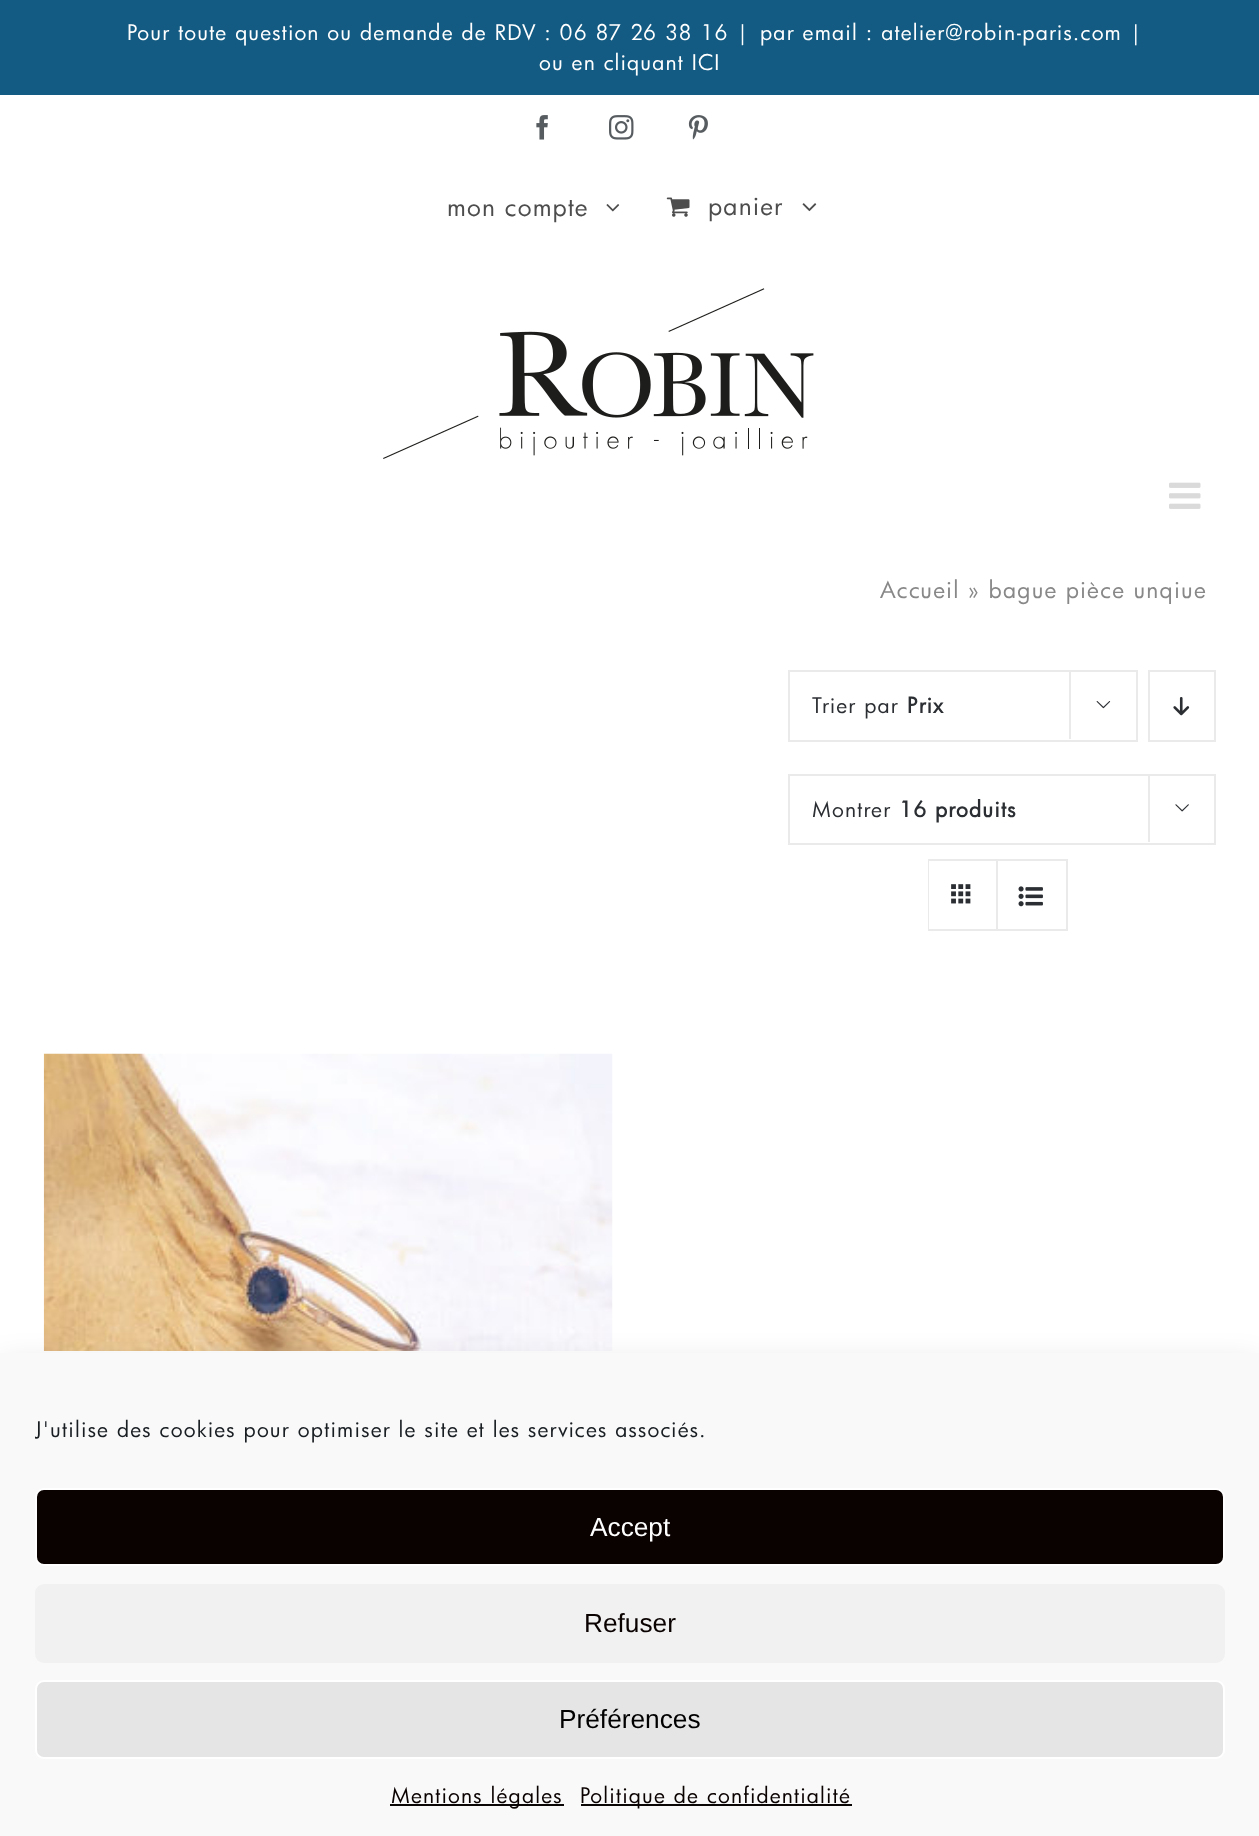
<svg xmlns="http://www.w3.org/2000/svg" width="1259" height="1836">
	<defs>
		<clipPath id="clip1"><rect x="35" y="1412" width="1190" height="41" /></clipPath>
	</defs>
	<rect width="100%" height="100%" fill="#FFFFFF" />
	<rect x="0" y="0" width="1259" height="95" fill="#135B82" />
	<g font-family="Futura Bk" font-size="21" letter-spacing="1.22" fill="#FFFFFF">
		<text x="127" y="40">Pour toute question ou demande de RDV : 06 87 26 38 16 |</text>
		<text x="760" y="40">par email : atelier@robin-paris.com |</text>
		<text x="539" y="70">ou en cliquant ICI</text>
	</g>
	<image x="536" y="115" width="12" height="25" href="assets/img1.png" />
	<image x="609" y="115" width="25" height="25" href="assets/img2.png" />
	<image x="688" y="115" width="20" height="25" href="assets/img3.png" />
	<text x="447" y="216" font-family="Futura Bk" font-size="24.5" letter-spacing="1.22" fill="#4D4D4D">mon compte</text>
	<image x="606" y="204" width="14" height="8" href="assets/img4.png" />
	<image x="666" y="197" width="24" height="20" href="assets/img5.png" />
	<text x="708" y="215" font-family="Futura Bk" font-size="24.5" letter-spacing="1.22" fill="#4D4D4D">panier</text>
	<image x="802" y="203" width="15" height="9" href="assets/img6.png" />
	<image x="383" y="288" width="431" height="171" href="assets/img7.png" />
	<image x="1169" y="482" width="32" height="27" href="assets/img8.png" />
	<text x="880" y="598" font-family="Futura Bk" font-size="22.75" letter-spacing="1.22" fill="#888888">Accueil » bague pièce unqiue</text>
	<rect x="789" y="671" width="348" height="70" fill="none" stroke="#EAEAEA" stroke-width="2" />
	<text x="812" y="713" font-family="Futura Bk" font-size="21" letter-spacing="1.22" fill="#2B2E32">Trier par</text>
	<text x="907" y="713" font-family="Futura Bk" font-size="21" font-weight="700" letter-spacing="1.22" fill="#2B2E32">Prix</text>
	<rect x="1069" y="670" width="2" height="69" fill="#EAEAEA" />
	<image x="1096" y="701" width="15" height="8" href="assets/img9.png" />
	<rect x="1149" y="671" width="66" height="70" fill="none" stroke="#EAEAEA" stroke-width="2" />
	<image x="1173" y="697" width="17" height="19" href="assets/img10.png" />
	<rect x="789" y="775" width="426" height="69" fill="none" stroke="#EAEAEA" stroke-width="2" />
	<text x="812" y="817" font-family="Futura Bk" font-size="21" letter-spacing="1.22" fill="#2B2E32">Montrer</text>
	<text x="899" y="817" font-family="Futura Bk" font-size="21" font-weight="700" letter-spacing="1.22" fill="#2B2E32">16 produits</text>
	<rect x="1148" y="774" width="2" height="68" fill="#EAEAEA" />
	<image x="1175" y="804" width="14" height="8" href="assets/img11.png" />
	<rect x="929" y="860" width="138" height="70" fill="none" stroke="#EAEAEA" stroke-width="2" />
	<rect x="929" y="861" width="1" height="68" fill="#FFFFFF" />
	<rect x="996" y="861" width="2" height="68" fill="#EAEAEA" />
	<image x="951" y="884" width="20" height="20" href="assets/img12.png" />
	<image x="1018" y="886" width="25" height="21" href="assets/img13.png" />
	<image x="43" y="1053" width="570" height="298" href="assets/img14.png" />
	<rect x="0" y="1369" width="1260" height="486" fill="#000000" fill-opacity="0.19" filter="blur(17.5px)" />
	<rect x="0" y="1353" width="1259" height="483" fill="#F9F9F9" />
	<g clip-path="url(#clip1)">
		<text x="35" y="1437" font-family="Futura Bk" font-size="21" letter-spacing="1.22" fill="#191E23">J'utilise des cookies pour optimiser le site et les services associés.</text>
	</g>
	<rect x="36" y="1489" width="1188" height="76" rx="8" fill="#0A0101" stroke="#FFFFFF" stroke-width="2" />
	<text x="590" y="1536" font-family="Liberation Sans" font-size="26.25" fill="#FFFFFF">Accept</text>
	<rect x="35" y="1584" width="1190" height="79" rx="9" fill="#F1F1F1" />
	<text x="584" y="1632" font-family="Liberation Sans" font-size="26.25" fill="#0A0101">Refuser</text>
	<rect x="36" y="1681" width="1188" height="77" rx="8" fill="#E5E5E5" stroke="#FFFFFF" stroke-width="2" />
	<text x="559" y="1728" font-family="Liberation Sans" font-size="26.25" fill="#000000">Préférences</text>
	<rect x="390" y="1804" width="174" height="2" fill="#0A0606" />
	<text x="391" y="1803" font-family="Futura Bk" font-size="21" letter-spacing="1.22" fill="#0A0101">Mentions légales</text>
	<rect x="581" y="1804" width="271" height="2" fill="#0A0606" />
	<text x="580" y="1803" font-family="Futura Bk" font-size="21" letter-spacing="1.22" fill="#0A0101">Politique de confidentialité</text>
</svg>
